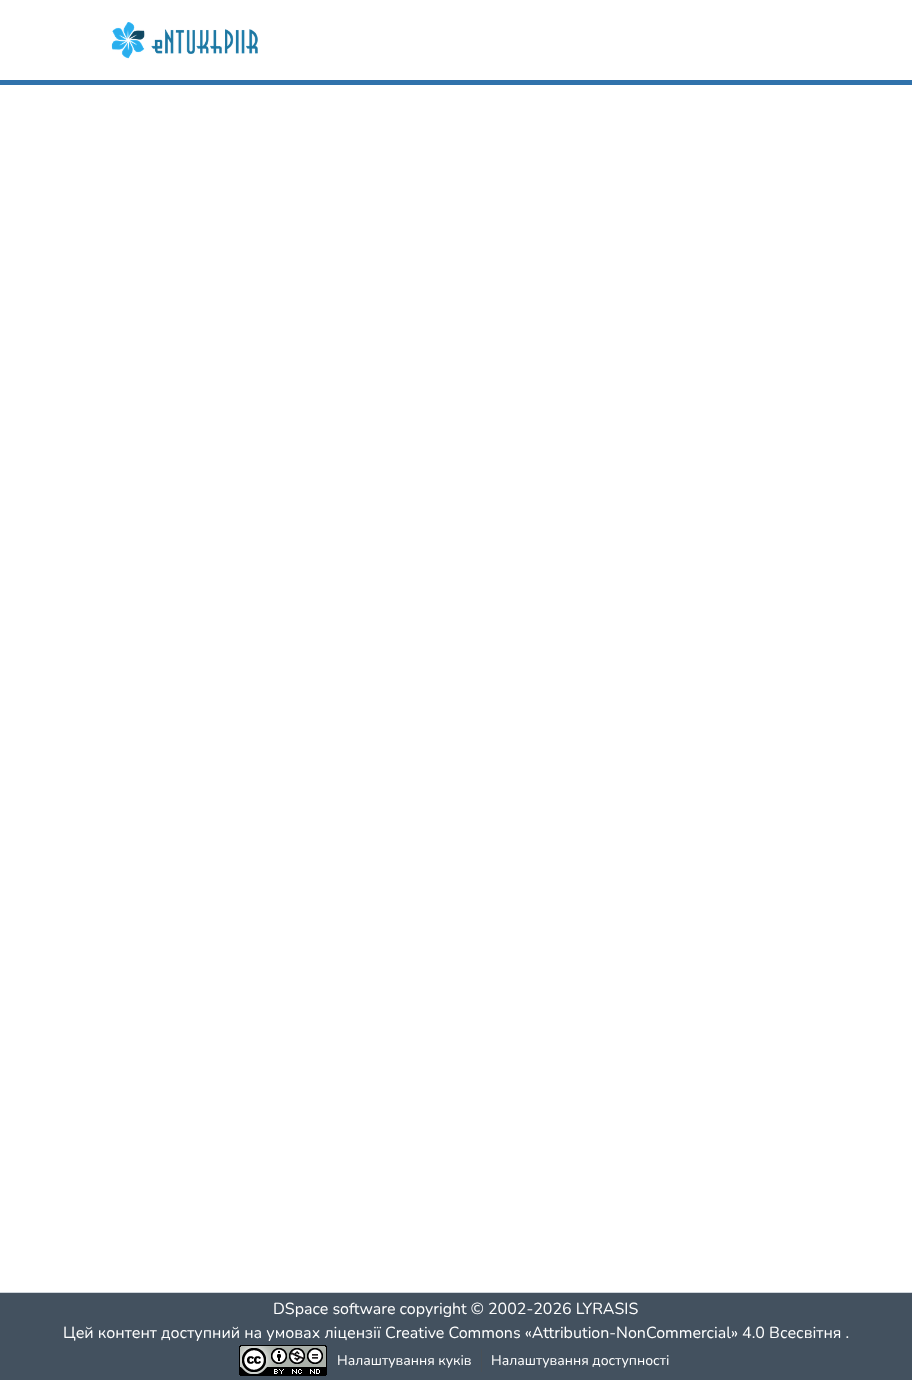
<svg xmlns="http://www.w3.org/2000/svg" width="912" height="1380">
	<rect width="100%" height="100%" fill="#FFFFFF" />
	<rect x="0" y="80" width="912" height="5" fill="#3072AB" />
	<image x="111" y="22" width="147" height="37" href="assets/img1.png" />
	<rect x="0" y="1293" width="912" height="87" fill="#43515F" />
	<rect x="0" y="1292" width="912" height="1" fill="#CED4DA" />
	<g font-family="Nunito" font-size="16" fill="#FFFFFF">
		<text x="273" y="1314">DSpace software copyright © 2002-2026 LYRASIS</text>
		<text x="63" y="1338">Цей контент доступний на умовах ліцензії Creative Commons «Attribution-NonCommercial» 4.0 Всесвітня .</text>
	</g>
	<image x="239" y="1345" width="88" height="31" href="assets/img2.png" />
	<text x="337" y="1365" font-family="Nunito" font-size="14" fill="#FFFFFF">Налаштування куків</text>
	<rect x="481" y="1349" width="1" height="23" fill="#495057" />
	<text x="491" y="1365" font-family="Nunito" font-size="14" fill="#FFFFFF">Налаштування доступності</text>
</svg>
